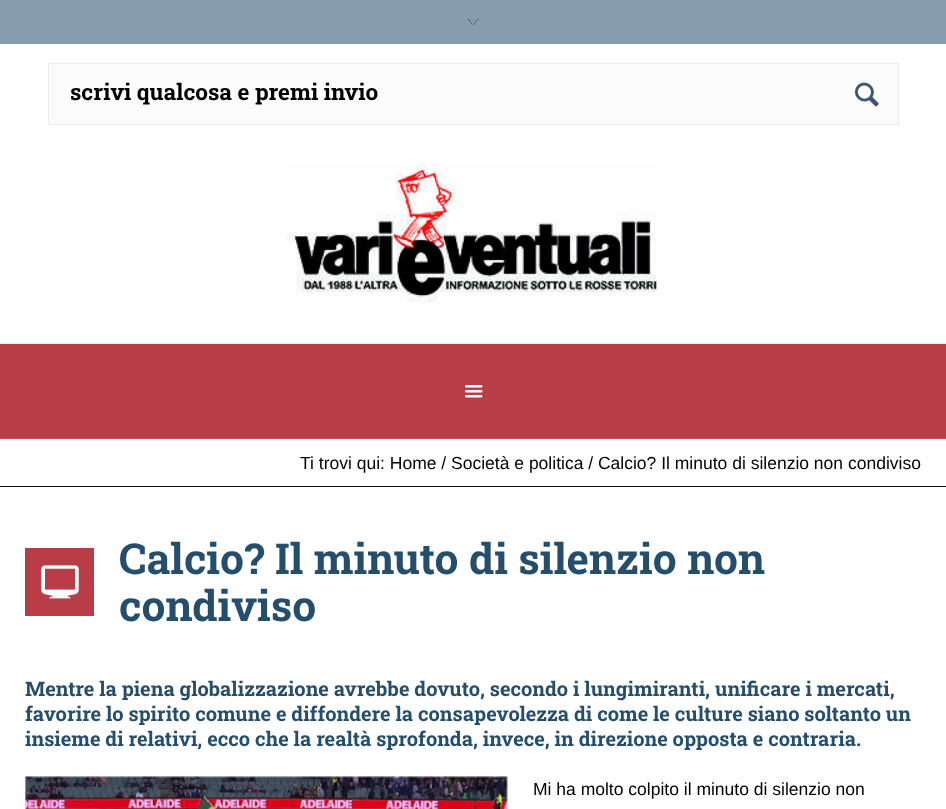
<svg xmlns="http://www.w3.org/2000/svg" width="946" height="809">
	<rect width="100%" height="100%" fill="#FFFFFF" />
	<rect x="0" y="0" width="946" height="44" fill="#879CAE" />
	<rect x="473" y="24" width="1" height="1" fill="#3C576E" />
	<rect x="478" y="19" width="1" height="1" fill="#3C576E" />
	<rect x="468" y="19" width="1" height="1" fill="#3C576E" />
	<rect x="476" y="20" width="1" height="1" fill="#3C576E" />
	<rect x="469" y="20" width="1" height="1" fill="#3C576E" />
	<rect x="475" y="21" width="1" height="1" fill="#3C576E" />
	<rect x="470" y="21" width="1" height="1" fill="#3C576E" />
	<rect x="474" y="23" width="1" height="1" fill="#3C576E" />
	<rect x="471" y="23" width="1" height="1" fill="#3C576E" />
	<rect x="0" y="343" width="946" height="1" fill="#EBEBEB" />
	<rect x="48.5" y="63.5" width="850" height="61" fill="#FBFBFB" stroke="#EBEBEB" />
	<text x="70" y="100" font-family="Roboto Slab" font-size="22.5" font-weight="700" fill="#000000">scrivi qualcosa e premi invio</text>
	<image x="855" y="82" width="24" height="25" href="assets/img1.png" />
	<image x="286" y="162" width="371" height="141" href="assets/img2.png" />
	<rect x="0" y="344" width="946" height="94" fill="#B83D46" />
	<rect x="0" y="438" width="946" height="1" fill="#BF5058" />
	<image x="465" y="385" width="18" height="13" href="assets/img3.png" />
	<rect x="0" y="486" width="946" height="1" fill="#0F0E0E" />
	<text x="300" y="469" font-family="Liberation Sans" font-size="17.5" fill="#000000">Ti trovi qui: Home / Società e politica / Calcio? Il minuto di silenzio non condiviso</text>
	<rect x="25" y="548" width="69" height="68" fill="#B83D46" />
	<image x="41" y="565" width="38" height="34" href="assets/img4.png" />
	<g font-family="Roboto Slab" font-size="42.5" font-weight="700" fill="#254E6D">
		<text x="119" y="574">Calcio? Il minuto di silenzio non</text>
		<text x="119" y="621">condiviso</text>
	</g>
	<g font-family="Roboto Slab" font-size="20" font-weight="700" fill="#254E6D">
		<text x="25" y="696">Mentre la piena globalizzazione avrebbe dovuto, secondo i lungimiranti, unificare i mercati,</text>
		<text x="25" y="721">favorire lo spirito comune e diffondere la consapevolezza di come le culture siano soltanto un</text>
		<text x="25" y="746">insieme di relativi, ecco che la realtà sprofonda, invece, in direzione opposta e contraria.</text>
	</g>
	<image x="25" y="776" width="483" height="33" href="assets/img5.png" />
	<text x="533" y="795" font-family="Liberation Sans" font-size="17.5" fill="#000000">Mi ha molto colpito il minuto di silenzio non</text>
</svg>
